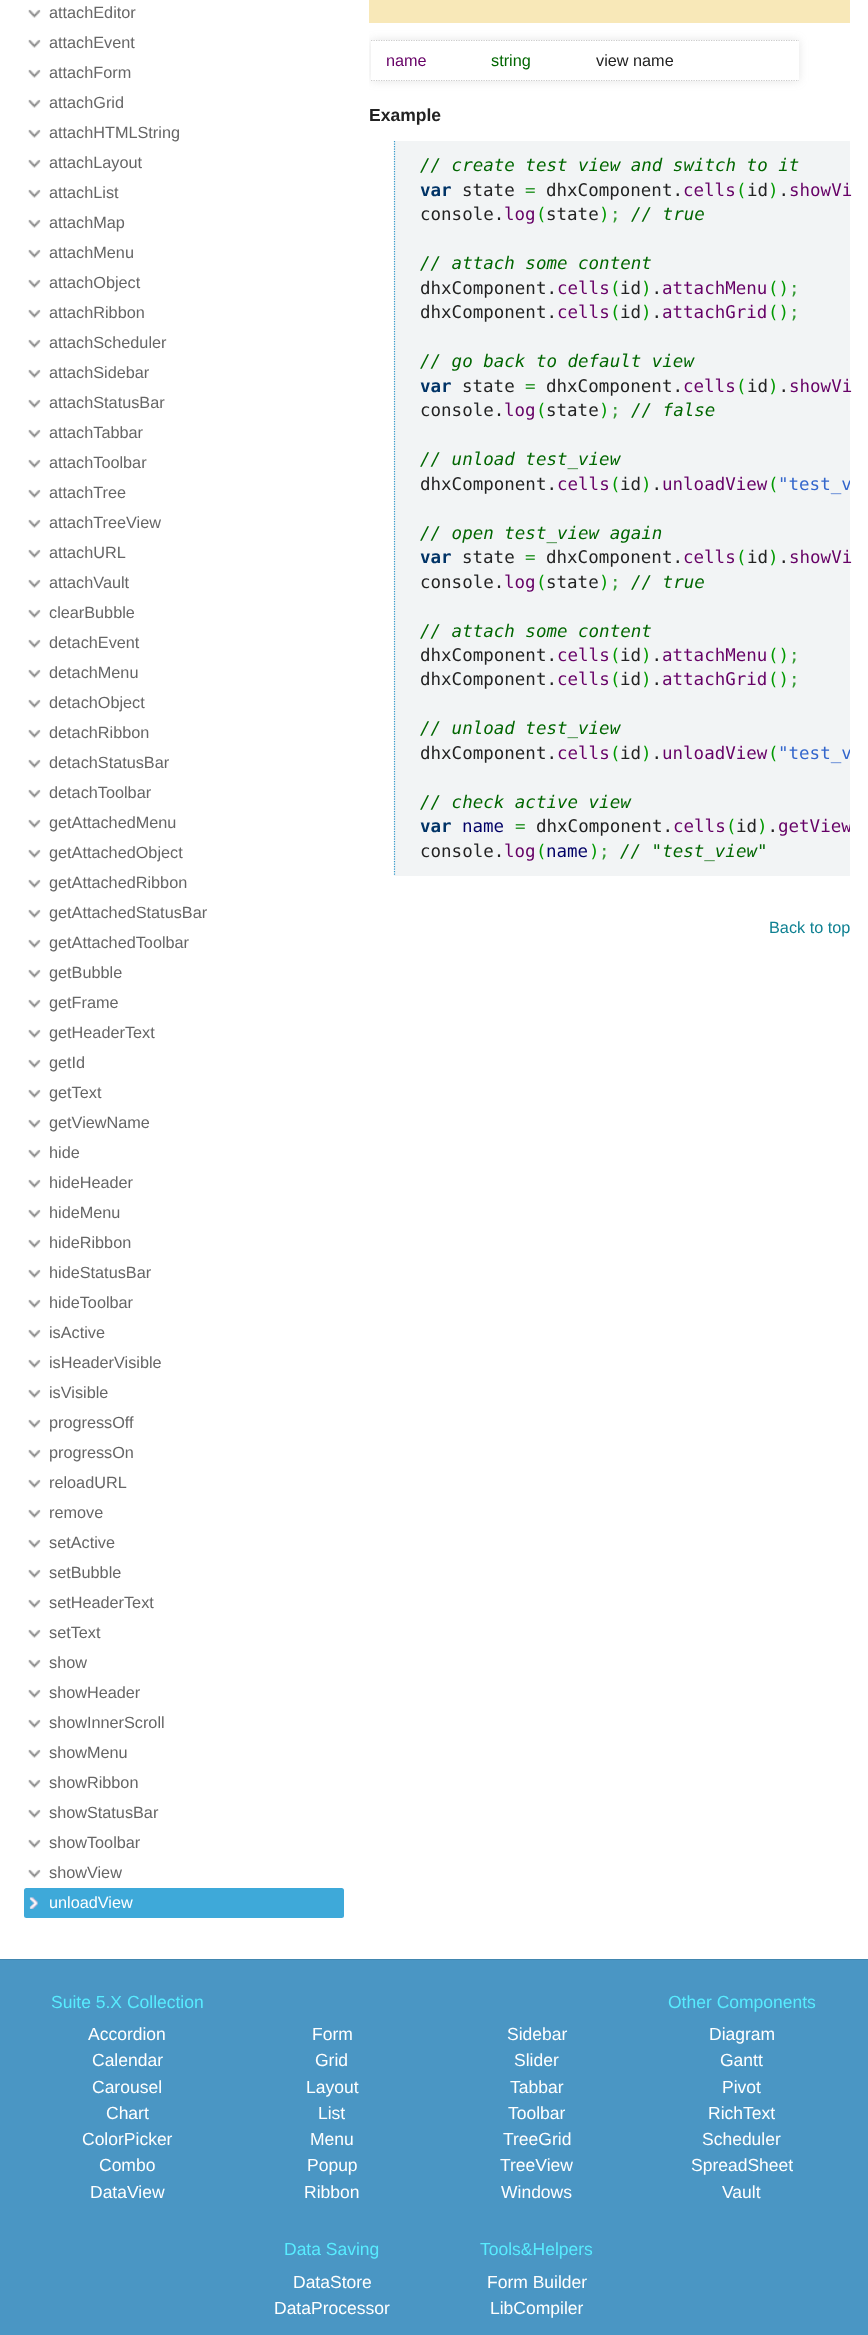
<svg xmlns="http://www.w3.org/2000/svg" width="868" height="2335">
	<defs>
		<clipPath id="clip1"><rect x="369" y="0" width="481" height="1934" /></clipPath>
		<clipPath id="clip2"><path d="M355 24H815V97H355ZM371 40H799V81H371Z" clip-rule="evenodd" /></clipPath>
		<clipPath id="clip3"><rect x="369" y="0" width="481" height="1934" /></clipPath>
	</defs>
	<rect width="100%" height="100%" fill="#4A96C4" />
	<rect x="0" y="0" width="868" height="1959" fill="#FFFFFF" />
	<image x="28" y="9" width="13" height="9" href="assets/img1.png" />
	<text x="49" y="18" font-family="Liberation Sans" font-size="16.25" fill="#666666">attachEditor</text>
	<image x="28" y="39" width="13" height="9" href="assets/img1.png" />
	<text x="49" y="48" font-family="Liberation Sans" font-size="16.25" fill="#666666">attachEvent</text>
	<image x="28" y="69" width="13" height="9" href="assets/img1.png" />
	<text x="49" y="78" font-family="Liberation Sans" font-size="16.25" fill="#666666">attachForm</text>
	<image x="28" y="99" width="13" height="9" href="assets/img1.png" />
	<text x="49" y="108" font-family="Liberation Sans" font-size="16.25" fill="#666666">attachGrid</text>
	<image x="28" y="129" width="13" height="9" href="assets/img1.png" />
	<text x="49" y="138" font-family="Liberation Sans" font-size="16.25" fill="#666666">attachHTMLString</text>
	<image x="28" y="159" width="13" height="9" href="assets/img1.png" />
	<text x="49" y="168" font-family="Liberation Sans" font-size="16.25" fill="#666666">attachLayout</text>
	<image x="28" y="189" width="13" height="9" href="assets/img1.png" />
	<text x="49" y="198" font-family="Liberation Sans" font-size="16.25" fill="#666666">attachList</text>
	<image x="28" y="219" width="13" height="9" href="assets/img1.png" />
	<text x="49" y="228" font-family="Liberation Sans" font-size="16.25" fill="#666666">attachMap</text>
	<image x="28" y="249" width="13" height="9" href="assets/img1.png" />
	<text x="49" y="258" font-family="Liberation Sans" font-size="16.25" fill="#666666">attachMenu</text>
	<image x="28" y="279" width="13" height="9" href="assets/img1.png" />
	<text x="49" y="288" font-family="Liberation Sans" font-size="16.25" fill="#666666">attachObject</text>
	<image x="28" y="309" width="13" height="9" href="assets/img1.png" />
	<text x="49" y="318" font-family="Liberation Sans" font-size="16.25" fill="#666666">attachRibbon</text>
	<image x="28" y="339" width="13" height="9" href="assets/img1.png" />
	<text x="49" y="348" font-family="Liberation Sans" font-size="16.25" fill="#666666">attachScheduler</text>
	<image x="28" y="369" width="13" height="9" href="assets/img2.png" />
	<text x="49" y="378" font-family="Liberation Sans" font-size="16.25" fill="#666666">attachSidebar</text>
	<image x="28" y="399" width="13" height="9" href="assets/img1.png" />
	<text x="49" y="408" font-family="Liberation Sans" font-size="16.25" fill="#666666">attachStatusBar</text>
	<image x="28" y="429" width="13" height="9" href="assets/img1.png" />
	<text x="49" y="438" font-family="Liberation Sans" font-size="16.25" fill="#666666">attachTabbar</text>
	<image x="28" y="459" width="13" height="9" href="assets/img1.png" />
	<text x="49" y="468" font-family="Liberation Sans" font-size="16.25" fill="#666666">attachToolbar</text>
	<image x="28" y="489" width="13" height="9" href="assets/img1.png" />
	<text x="49" y="498" font-family="Liberation Sans" font-size="16.25" fill="#666666">attachTree</text>
	<image x="28" y="519" width="13" height="9" href="assets/img1.png" />
	<text x="49" y="528" font-family="Liberation Sans" font-size="16.25" fill="#666666">attachTreeView</text>
	<image x="28" y="549" width="13" height="9" href="assets/img1.png" />
	<text x="49" y="558" font-family="Liberation Sans" font-size="16.25" fill="#666666">attachURL</text>
	<image x="28" y="579" width="13" height="9" href="assets/img1.png" />
	<text x="49" y="588" font-family="Liberation Sans" font-size="16.25" fill="#666666">attachVault</text>
	<image x="28" y="609" width="13" height="9" href="assets/img1.png" />
	<text x="49" y="618" font-family="Liberation Sans" font-size="16.25" fill="#666666">clearBubble</text>
	<image x="28" y="639" width="13" height="9" href="assets/img1.png" />
	<text x="49" y="648" font-family="Liberation Sans" font-size="16.25" fill="#666666">detachEvent</text>
	<image x="28" y="669" width="13" height="9" href="assets/img1.png" />
	<text x="49" y="678" font-family="Liberation Sans" font-size="16.25" fill="#666666">detachMenu</text>
	<image x="28" y="699" width="13" height="9" href="assets/img1.png" />
	<text x="49" y="708" font-family="Liberation Sans" font-size="16.25" fill="#666666">detachObject</text>
	<image x="28" y="729" width="13" height="9" href="assets/img1.png" />
	<text x="49" y="738" font-family="Liberation Sans" font-size="16.25" fill="#666666">detachRibbon</text>
	<image x="28" y="759" width="13" height="9" href="assets/img3.png" />
	<text x="49" y="768" font-family="Liberation Sans" font-size="16.25" fill="#666666">detachStatusBar</text>
	<image x="28" y="789" width="13" height="9" href="assets/img1.png" />
	<text x="49" y="798" font-family="Liberation Sans" font-size="16.25" fill="#666666">detachToolbar</text>
	<image x="28" y="819" width="13" height="9" href="assets/img1.png" />
	<text x="49" y="828" font-family="Liberation Sans" font-size="16.25" fill="#666666">getAttachedMenu</text>
	<image x="28" y="849" width="13" height="9" href="assets/img1.png" />
	<text x="49" y="858" font-family="Liberation Sans" font-size="16.25" fill="#666666">getAttachedObject</text>
	<image x="28" y="879" width="13" height="9" href="assets/img1.png" />
	<text x="49" y="888" font-family="Liberation Sans" font-size="16.25" fill="#666666">getAttachedRibbon</text>
	<image x="28" y="909" width="13" height="9" href="assets/img1.png" />
	<text x="49" y="918" font-family="Liberation Sans" font-size="16.25" fill="#666666">getAttachedStatusBar</text>
	<image x="28" y="939" width="13" height="9" href="assets/img1.png" />
	<text x="49" y="948" font-family="Liberation Sans" font-size="16.25" fill="#666666">getAttachedToolbar</text>
	<image x="28" y="969" width="13" height="9" href="assets/img1.png" />
	<text x="49" y="978" font-family="Liberation Sans" font-size="16.25" fill="#666666">getBubble</text>
	<image x="28" y="999" width="13" height="9" href="assets/img1.png" />
	<text x="49" y="1008" font-family="Liberation Sans" font-size="16.25" fill="#666666">getFrame</text>
	<image x="28" y="1029" width="13" height="9" href="assets/img1.png" />
	<text x="49" y="1038" font-family="Liberation Sans" font-size="16.25" fill="#666666">getHeaderText</text>
	<image x="28" y="1059" width="13" height="9" href="assets/img1.png" />
	<text x="49" y="1068" font-family="Liberation Sans" font-size="16.25" fill="#666666">getId</text>
	<image x="28" y="1089" width="13" height="9" href="assets/img1.png" />
	<text x="49" y="1098" font-family="Liberation Sans" font-size="16.25" fill="#666666">getText</text>
	<image x="28" y="1119" width="13" height="9" href="assets/img1.png" />
	<text x="49" y="1128" font-family="Liberation Sans" font-size="16.25" fill="#666666">getViewName</text>
	<image x="28" y="1149" width="13" height="9" href="assets/img3.png" />
	<text x="49" y="1158" font-family="Liberation Sans" font-size="16.25" fill="#666666">hide</text>
	<image x="28" y="1179" width="13" height="9" href="assets/img1.png" />
	<text x="49" y="1188" font-family="Liberation Sans" font-size="16.25" fill="#666666">hideHeader</text>
	<image x="28" y="1209" width="13" height="9" href="assets/img1.png" />
	<text x="49" y="1218" font-family="Liberation Sans" font-size="16.25" fill="#666666">hideMenu</text>
	<image x="28" y="1239" width="13" height="9" href="assets/img1.png" />
	<text x="49" y="1248" font-family="Liberation Sans" font-size="16.25" fill="#666666">hideRibbon</text>
	<image x="28" y="1269" width="13" height="9" href="assets/img1.png" />
	<text x="49" y="1278" font-family="Liberation Sans" font-size="16.25" fill="#666666">hideStatusBar</text>
	<image x="28" y="1299" width="13" height="9" href="assets/img1.png" />
	<text x="49" y="1308" font-family="Liberation Sans" font-size="16.25" fill="#666666">hideToolbar</text>
	<image x="28" y="1329" width="13" height="9" href="assets/img1.png" />
	<text x="49" y="1338" font-family="Liberation Sans" font-size="16.25" fill="#666666">isActive</text>
	<image x="28" y="1359" width="13" height="9" href="assets/img1.png" />
	<text x="49" y="1368" font-family="Liberation Sans" font-size="16.25" fill="#666666">isHeaderVisible</text>
	<image x="28" y="1389" width="13" height="9" href="assets/img1.png" />
	<text x="49" y="1398" font-family="Liberation Sans" font-size="16.25" fill="#666666">isVisible</text>
	<image x="28" y="1419" width="13" height="9" href="assets/img1.png" />
	<text x="49" y="1428" font-family="Liberation Sans" font-size="16.25" fill="#666666">progressOff</text>
	<image x="28" y="1449" width="13" height="9" href="assets/img2.png" />
	<text x="49" y="1458" font-family="Liberation Sans" font-size="16.25" fill="#666666">progressOn</text>
	<image x="28" y="1479" width="13" height="9" href="assets/img1.png" />
	<text x="49" y="1488" font-family="Liberation Sans" font-size="16.25" fill="#666666">reloadURL</text>
	<image x="28" y="1509" width="13" height="9" href="assets/img1.png" />
	<text x="49" y="1518" font-family="Liberation Sans" font-size="16.25" fill="#666666">remove</text>
	<image x="28" y="1539" width="13" height="9" href="assets/img1.png" />
	<text x="49" y="1548" font-family="Liberation Sans" font-size="16.25" fill="#666666">setActive</text>
	<image x="28" y="1569" width="13" height="9" href="assets/img1.png" />
	<text x="49" y="1578" font-family="Liberation Sans" font-size="16.25" fill="#666666">setBubble</text>
	<image x="28" y="1599" width="13" height="9" href="assets/img1.png" />
	<text x="49" y="1608" font-family="Liberation Sans" font-size="16.25" fill="#666666">setHeaderText</text>
	<image x="28" y="1629" width="13" height="9" href="assets/img1.png" />
	<text x="49" y="1638" font-family="Liberation Sans" font-size="16.25" fill="#666666">setText</text>
	<image x="28" y="1659" width="13" height="9" href="assets/img1.png" />
	<text x="49" y="1668" font-family="Liberation Sans" font-size="16.25" fill="#666666">show</text>
	<image x="28" y="1689" width="13" height="9" href="assets/img1.png" />
	<text x="49" y="1698" font-family="Liberation Sans" font-size="16.25" fill="#666666">showHeader</text>
	<image x="28" y="1719" width="13" height="9" href="assets/img1.png" />
	<text x="49" y="1728" font-family="Liberation Sans" font-size="16.25" fill="#666666">showInnerScroll</text>
	<image x="28" y="1749" width="13" height="9" href="assets/img1.png" />
	<text x="49" y="1758" font-family="Liberation Sans" font-size="16.25" fill="#666666">showMenu</text>
	<image x="28" y="1779" width="13" height="9" href="assets/img1.png" />
	<text x="49" y="1788" font-family="Liberation Sans" font-size="16.25" fill="#666666">showRibbon</text>
	<image x="28" y="1809" width="13" height="9" href="assets/img1.png" />
	<text x="49" y="1818" font-family="Liberation Sans" font-size="16.25" fill="#666666">showStatusBar</text>
	<image x="28" y="1839" width="13" height="9" href="assets/img1.png" />
	<text x="49" y="1848" font-family="Liberation Sans" font-size="16.25" fill="#666666">showToolbar</text>
	<image x="28" y="1869" width="13" height="9" href="assets/img1.png" />
	<text x="49" y="1878" font-family="Liberation Sans" font-size="16.25" fill="#666666">showView</text>
	<rect x="24" y="1888" width="320" height="30" rx="2.5" fill="#3EA9D9" />
	<image x="29" y="1897" width="9" height="12" href="assets/img4.png" />
	<text x="49" y="1908" font-family="Liberation Sans" font-size="16.25" fill="#FFFFFF">unloadView</text>
	<rect x="369" y="0" width="481" height="23" fill="#F8E8B8" />
	<g clip-path="url(#clip1)">
		<g clip-path="url(#clip2)">
			<rect x="371" y="40" width="428" height="41" fill="#7F7F7F" fill-opacity="0.2" filter="blur(5px)" />
		</g>
	</g>
	<path d="M371 40.5H799" fill="none" stroke="#CCCCCC" stroke-width="1.2" stroke-dasharray="1.25 1.25" />
	<path d="M371 80.5H476" fill="none" stroke="#CCCCCC" stroke-width="1.2" stroke-dasharray="1.25 1.25" />
	<text x="386" y="66" font-family="Liberation Sans" font-size="16.25" fill="#660066">name</text>
	<path d="M476 80.5H581" fill="none" stroke="#CCCCCC" stroke-width="1.2" stroke-dasharray="1.25 1.25" />
	<text x="491" y="66" font-family="Liberation Sans" font-size="16.25" fill="#006600">string</text>
	<path d="M581 80.5H799" fill="none" stroke="#CCCCCC" stroke-width="1.2" stroke-dasharray="1.25 1.25" />
	<text x="596" y="66" font-family="Liberation Sans" font-size="16.25" fill="#222222">view name</text>
	<text x="369" y="121" font-family="Liberation Sans" font-size="17.5" font-weight="700" fill="#222222">Example</text>
	<rect x="394" y="141" width="456" height="735" fill="#F2F4F5" />
	<path d="M394.5 141V876" fill="none" stroke="#3399CC" stroke-width="1.2" stroke-dasharray="1.25 1.25" />
	<text x="420" y="171" font-family="DejaVu Sans Mono" font-size="17.5" font-style="italic" fill="#006600">// create test view and switch to it</text>
	<text x="546" y="196" font-family="DejaVu Sans Mono" font-size="17.5" fill="#222222">dhxComponent.</text>
	<text x="683" y="196" font-family="DejaVu Sans Mono" font-size="17.5" fill="#660066">cells</text>
	<text x="736" y="196" font-family="DejaVu Sans Mono" font-size="17.5" fill="#009900">(</text>
	<text x="747" y="196" font-family="DejaVu Sans Mono" font-size="17.5" fill="#222222">id .</text>
	<text x="420" y="196" font-family="DejaVu Sans Mono" font-size="17.5" font-weight="700" fill="#003366">var</text>
	<text x="462" y="196" font-family="DejaVu Sans Mono" font-size="17.5" fill="#222222">state</text>
	<text x="525" y="196" font-family="DejaVu Sans Mono" font-size="17.5" fill="#339933">=</text>
	<text x="768" y="196" font-family="DejaVu Sans Mono" font-size="17.5" fill="#009900">)</text>
	<text x="789" y="196" font-family="DejaVu Sans Mono" font-size="17.5" fill="#660066">showVi</text>
	<text x="420" y="220" font-family="DejaVu Sans Mono" font-size="17.5" fill="#222222">console.</text>
	<text x="504" y="220" font-family="DejaVu Sans Mono" font-size="17.5" fill="#660066">log</text>
	<text x="536" y="220" font-family="DejaVu Sans Mono" font-size="17.5" fill="#009900">(</text>
	<text x="546" y="220" font-family="DejaVu Sans Mono" font-size="17.5" fill="#222222">state</text>
	<text x="599" y="220" font-family="DejaVu Sans Mono" font-size="17.5" fill="#009900">)</text>
	<text x="610" y="220" font-family="DejaVu Sans Mono" font-size="17.5" fill="#339933">;</text>
	<g font-family="DejaVu Sans Mono" font-size="17.5" font-style="italic" fill="#006600">
		<text x="631" y="220">// true</text>
		<text x="420" y="269">// attach some content</text>
	</g>
	<text x="420" y="294" font-family="DejaVu Sans Mono" font-size="17.5" fill="#222222">dhxComponent.</text>
	<text x="557" y="294" font-family="DejaVu Sans Mono" font-size="17.5" fill="#660066">cells</text>
	<text x="610" y="294" font-family="DejaVu Sans Mono" font-size="17.5" fill="#009900">(</text>
	<text x="620" y="294" font-family="DejaVu Sans Mono" font-size="17.5" fill="#222222">id .</text>
	<text x="641" y="294" font-family="DejaVu Sans Mono" font-size="17.5" fill="#009900">)</text>
	<text x="662" y="294" font-family="DejaVu Sans Mono" font-size="17.5" fill="#660066">attachMenu</text>
	<text x="768" y="294" font-family="DejaVu Sans Mono" font-size="17.5" fill="#009900">()</text>
	<text x="789" y="294" font-family="DejaVu Sans Mono" font-size="17.5" fill="#339933">;</text>
	<text x="420" y="318" font-family="DejaVu Sans Mono" font-size="17.5" fill="#222222">dhxComponent.</text>
	<text x="557" y="318" font-family="DejaVu Sans Mono" font-size="17.5" fill="#660066">cells</text>
	<text x="610" y="318" font-family="DejaVu Sans Mono" font-size="17.5" fill="#009900">(</text>
	<text x="620" y="318" font-family="DejaVu Sans Mono" font-size="17.5" fill="#222222">id .</text>
	<text x="641" y="318" font-family="DejaVu Sans Mono" font-size="17.5" fill="#009900">)</text>
	<text x="662" y="318" font-family="DejaVu Sans Mono" font-size="17.5" fill="#660066">attachGrid</text>
	<text x="768" y="318" font-family="DejaVu Sans Mono" font-size="17.5" fill="#009900">()</text>
	<text x="789" y="318" font-family="DejaVu Sans Mono" font-size="17.5" fill="#339933">;</text>
	<text x="420" y="367" font-family="DejaVu Sans Mono" font-size="17.5" font-style="italic" fill="#006600">// go back to default view</text>
	<text x="546" y="392" font-family="DejaVu Sans Mono" font-size="17.5" fill="#222222">dhxComponent.</text>
	<text x="683" y="392" font-family="DejaVu Sans Mono" font-size="17.5" fill="#660066">cells</text>
	<text x="736" y="392" font-family="DejaVu Sans Mono" font-size="17.5" fill="#009900">(</text>
	<text x="747" y="392" font-family="DejaVu Sans Mono" font-size="17.5" fill="#222222">id .</text>
	<text x="420" y="392" font-family="DejaVu Sans Mono" font-size="17.5" font-weight="700" fill="#003366">var</text>
	<text x="462" y="392" font-family="DejaVu Sans Mono" font-size="17.5" fill="#222222">state</text>
	<text x="525" y="392" font-family="DejaVu Sans Mono" font-size="17.5" fill="#339933">=</text>
	<text x="768" y="392" font-family="DejaVu Sans Mono" font-size="17.5" fill="#009900">)</text>
	<text x="789" y="392" font-family="DejaVu Sans Mono" font-size="17.5" fill="#660066">showVi</text>
	<text x="420" y="416" font-family="DejaVu Sans Mono" font-size="17.5" fill="#222222">console.</text>
	<text x="504" y="416" font-family="DejaVu Sans Mono" font-size="17.5" fill="#660066">log</text>
	<text x="536" y="416" font-family="DejaVu Sans Mono" font-size="17.5" fill="#009900">(</text>
	<text x="546" y="416" font-family="DejaVu Sans Mono" font-size="17.5" fill="#222222">state</text>
	<text x="599" y="416" font-family="DejaVu Sans Mono" font-size="17.5" fill="#009900">)</text>
	<text x="610" y="416" font-family="DejaVu Sans Mono" font-size="17.5" fill="#339933">;</text>
	<g font-family="DejaVu Sans Mono" font-size="17.5" font-style="italic" fill="#006600">
		<text x="631" y="416">// false</text>
		<text x="420" y="465">// unload test_view</text>
	</g>
	<text x="420" y="490" font-family="DejaVu Sans Mono" font-size="17.5" fill="#222222">dhxComponent.</text>
	<text x="557" y="490" font-family="DejaVu Sans Mono" font-size="17.5" fill="#660066">cells</text>
	<text x="610" y="490" font-family="DejaVu Sans Mono" font-size="17.5" fill="#009900">(</text>
	<text x="620" y="490" font-family="DejaVu Sans Mono" font-size="17.5" fill="#222222">id .</text>
	<text x="641" y="490" font-family="DejaVu Sans Mono" font-size="17.5" fill="#009900">)</text>
	<text x="662" y="490" font-family="DejaVu Sans Mono" font-size="17.5" fill="#660066">unloadView</text>
	<text x="768" y="490" font-family="DejaVu Sans Mono" font-size="17.5" fill="#009900">(</text>
	<g clip-path="url(#clip3)">
		<text x="778" y="490" font-family="DejaVu Sans Mono" font-size="17.5" fill="#3366CC">"test_v</text>
	</g>
	<text x="420" y="539" font-family="DejaVu Sans Mono" font-size="17.5" font-style="italic" fill="#006600">// open test_view again</text>
	<text x="546" y="563" font-family="DejaVu Sans Mono" font-size="17.5" fill="#222222">dhxComponent.</text>
	<text x="683" y="563" font-family="DejaVu Sans Mono" font-size="17.5" fill="#660066">cells</text>
	<text x="736" y="563" font-family="DejaVu Sans Mono" font-size="17.5" fill="#009900">(</text>
	<text x="747" y="563" font-family="DejaVu Sans Mono" font-size="17.5" fill="#222222">id .</text>
	<text x="420" y="563" font-family="DejaVu Sans Mono" font-size="17.5" font-weight="700" fill="#003366">var</text>
	<text x="462" y="563" font-family="DejaVu Sans Mono" font-size="17.5" fill="#222222">state</text>
	<text x="525" y="563" font-family="DejaVu Sans Mono" font-size="17.5" fill="#339933">=</text>
	<text x="768" y="563" font-family="DejaVu Sans Mono" font-size="17.5" fill="#009900">)</text>
	<text x="789" y="563" font-family="DejaVu Sans Mono" font-size="17.5" fill="#660066">showVi</text>
	<text x="420" y="588" font-family="DejaVu Sans Mono" font-size="17.5" fill="#222222">console.</text>
	<text x="504" y="588" font-family="DejaVu Sans Mono" font-size="17.5" fill="#660066">log</text>
	<text x="536" y="588" font-family="DejaVu Sans Mono" font-size="17.5" fill="#009900">(</text>
	<text x="546" y="588" font-family="DejaVu Sans Mono" font-size="17.5" fill="#222222">state</text>
	<text x="599" y="588" font-family="DejaVu Sans Mono" font-size="17.5" fill="#009900">)</text>
	<text x="610" y="588" font-family="DejaVu Sans Mono" font-size="17.5" fill="#339933">;</text>
	<g font-family="DejaVu Sans Mono" font-size="17.5" font-style="italic" fill="#006600">
		<text x="631" y="588">// true</text>
		<text x="420" y="637">// attach some content</text>
	</g>
	<text x="420" y="661" font-family="DejaVu Sans Mono" font-size="17.5" fill="#222222">dhxComponent.</text>
	<text x="557" y="661" font-family="DejaVu Sans Mono" font-size="17.5" fill="#660066">cells</text>
	<text x="610" y="661" font-family="DejaVu Sans Mono" font-size="17.5" fill="#009900">(</text>
	<text x="620" y="661" font-family="DejaVu Sans Mono" font-size="17.5" fill="#222222">id .</text>
	<text x="641" y="661" font-family="DejaVu Sans Mono" font-size="17.5" fill="#009900">)</text>
	<text x="662" y="661" font-family="DejaVu Sans Mono" font-size="17.5" fill="#660066">attachMenu</text>
	<text x="768" y="661" font-family="DejaVu Sans Mono" font-size="17.5" fill="#009900">()</text>
	<text x="789" y="661" font-family="DejaVu Sans Mono" font-size="17.5" fill="#339933">;</text>
	<text x="420" y="685" font-family="DejaVu Sans Mono" font-size="17.5" fill="#222222">dhxComponent.</text>
	<text x="557" y="685" font-family="DejaVu Sans Mono" font-size="17.5" fill="#660066">cells</text>
	<text x="610" y="685" font-family="DejaVu Sans Mono" font-size="17.5" fill="#009900">(</text>
	<text x="620" y="685" font-family="DejaVu Sans Mono" font-size="17.5" fill="#222222">id .</text>
	<text x="641" y="685" font-family="DejaVu Sans Mono" font-size="17.5" fill="#009900">)</text>
	<text x="662" y="685" font-family="DejaVu Sans Mono" font-size="17.5" fill="#660066">attachGrid</text>
	<text x="768" y="685" font-family="DejaVu Sans Mono" font-size="17.5" fill="#009900">()</text>
	<text x="789" y="685" font-family="DejaVu Sans Mono" font-size="17.5" fill="#339933">;</text>
	<text x="420" y="734" font-family="DejaVu Sans Mono" font-size="17.5" font-style="italic" fill="#006600">// unload test_view</text>
	<text x="420" y="759" font-family="DejaVu Sans Mono" font-size="17.5" fill="#222222">dhxComponent.</text>
	<text x="557" y="759" font-family="DejaVu Sans Mono" font-size="17.5" fill="#660066">cells</text>
	<text x="610" y="759" font-family="DejaVu Sans Mono" font-size="17.5" fill="#009900">(</text>
	<text x="620" y="759" font-family="DejaVu Sans Mono" font-size="17.5" fill="#222222">id .</text>
	<text x="641" y="759" font-family="DejaVu Sans Mono" font-size="17.5" fill="#009900">)</text>
	<text x="662" y="759" font-family="DejaVu Sans Mono" font-size="17.5" fill="#660066">unloadView</text>
	<text x="768" y="759" font-family="DejaVu Sans Mono" font-size="17.5" fill="#009900">(</text>
	<g clip-path="url(#clip3)">
		<text x="778" y="759" font-family="DejaVu Sans Mono" font-size="17.5" fill="#3366CC">"test_v</text>
	</g>
	<text x="420" y="808" font-family="DejaVu Sans Mono" font-size="17.5" font-style="italic" fill="#006600">// check active view</text>
	<text x="536" y="832" font-family="DejaVu Sans Mono" font-size="17.5" fill="#222222">dhxComponent.</text>
	<text x="673" y="832" font-family="DejaVu Sans Mono" font-size="17.5" fill="#660066">cells</text>
	<text x="726" y="832" font-family="DejaVu Sans Mono" font-size="17.5" fill="#009900">(</text>
	<text x="736" y="832" font-family="DejaVu Sans Mono" font-size="17.5" fill="#222222">id .</text>
	<text x="420" y="832" font-family="DejaVu Sans Mono" font-size="17.5" font-weight="700" fill="#003366">var</text>
	<text x="462" y="832" font-family="DejaVu Sans Mono" font-size="17.5" fill="#000066">name</text>
	<text x="515" y="832" font-family="DejaVu Sans Mono" font-size="17.5" fill="#339933">=</text>
	<text x="757" y="832" font-family="DejaVu Sans Mono" font-size="17.5" fill="#009900">)</text>
	<g clip-path="url(#clip3)">
		<text x="778" y="832" font-family="DejaVu Sans Mono" font-size="17.5" fill="#660066">getView</text>
	</g>
	<text x="420" y="857" font-family="DejaVu Sans Mono" font-size="17.5" fill="#222222">console.</text>
	<text x="504" y="857" font-family="DejaVu Sans Mono" font-size="17.5" fill="#660066">log</text>
	<text x="536" y="857" font-family="DejaVu Sans Mono" font-size="17.5" fill="#009900">(</text>
	<text x="546" y="857" font-family="DejaVu Sans Mono" font-size="17.5" fill="#000066">name</text>
	<text x="589" y="857" font-family="DejaVu Sans Mono" font-size="17.5" fill="#009900">)</text>
	<text x="599" y="857" font-family="DejaVu Sans Mono" font-size="17.5" fill="#339933">;</text>
	<text x="620" y="857" font-family="DejaVu Sans Mono" font-size="17.5" font-style="italic" fill="#006600">// "test_view"</text>
	<text x="769" y="933" font-family="Liberation Sans" font-size="16.25" fill="#0F8192">Back to top</text>
	<rect x="0" y="1959" width="868" height="1" fill="#4287B0" />
	<text x="51" y="2008" font-family="Liberation Sans" font-size="17.5" fill="#58ECFF">Suite 5.X Collection</text>
	<g font-family="Liberation Sans" font-size="17.5" fill="#FFFFFF">
		<text x="88" y="2040">Accordion</text>
		<text x="92" y="2066">Calendar</text>
		<text x="92" y="2093">Carousel</text>
		<text x="106" y="2119">Chart</text>
		<text x="82" y="2145">ColorPicker</text>
		<text x="99" y="2171">Combo</text>
		<text x="90" y="2198">DataView</text>
		<text x="312" y="2040">Form</text>
		<text x="315" y="2066">Grid</text>
		<text x="306" y="2093">Layout</text>
		<text x="318" y="2119">List</text>
		<text x="310" y="2145">Menu</text>
		<text x="307" y="2171">Popup</text>
		<text x="304" y="2198">Ribbon</text>
		<text x="507" y="2040">Sidebar</text>
		<text x="514" y="2066">Slider</text>
		<text x="510" y="2093">Tabbar</text>
		<text x="508" y="2119">Toolbar</text>
		<text x="503" y="2145">TreeGrid</text>
		<text x="500" y="2171">TreeView</text>
		<text x="501" y="2198">Windows</text>
	</g>
	<text x="668" y="2008" font-family="Liberation Sans" font-size="17.5" fill="#58ECFF">Other Components</text>
	<g font-family="Liberation Sans" font-size="17.5" fill="#FFFFFF">
		<text x="709" y="2040">Diagram</text>
		<text x="720" y="2066">Gantt</text>
		<text x="722" y="2093">Pivot</text>
		<text x="708" y="2119">RichText</text>
		<text x="702" y="2145">Scheduler</text>
		<text x="691" y="2171">SpreadSheet</text>
		<text x="722" y="2198">Vault</text>
	</g>
	<text x="284" y="2255" font-family="Liberation Sans" font-size="17.5" fill="#58ECFF">Data Saving</text>
	<g font-family="Liberation Sans" font-size="17.5" fill="#FFFFFF">
		<text x="293" y="2288">DataStore</text>
		<text x="274" y="2314">DataProcessor</text>
	</g>
	<text x="480" y="2255" font-family="Liberation Sans" font-size="17.5" fill="#58ECFF">Tools&amp;Helpers</text>
	<g font-family="Liberation Sans" font-size="17.5" fill="#FFFFFF">
		<text x="487" y="2288">Form Builder</text>
		<text x="490" y="2314">LibCompiler</text>
	</g>
</svg>
